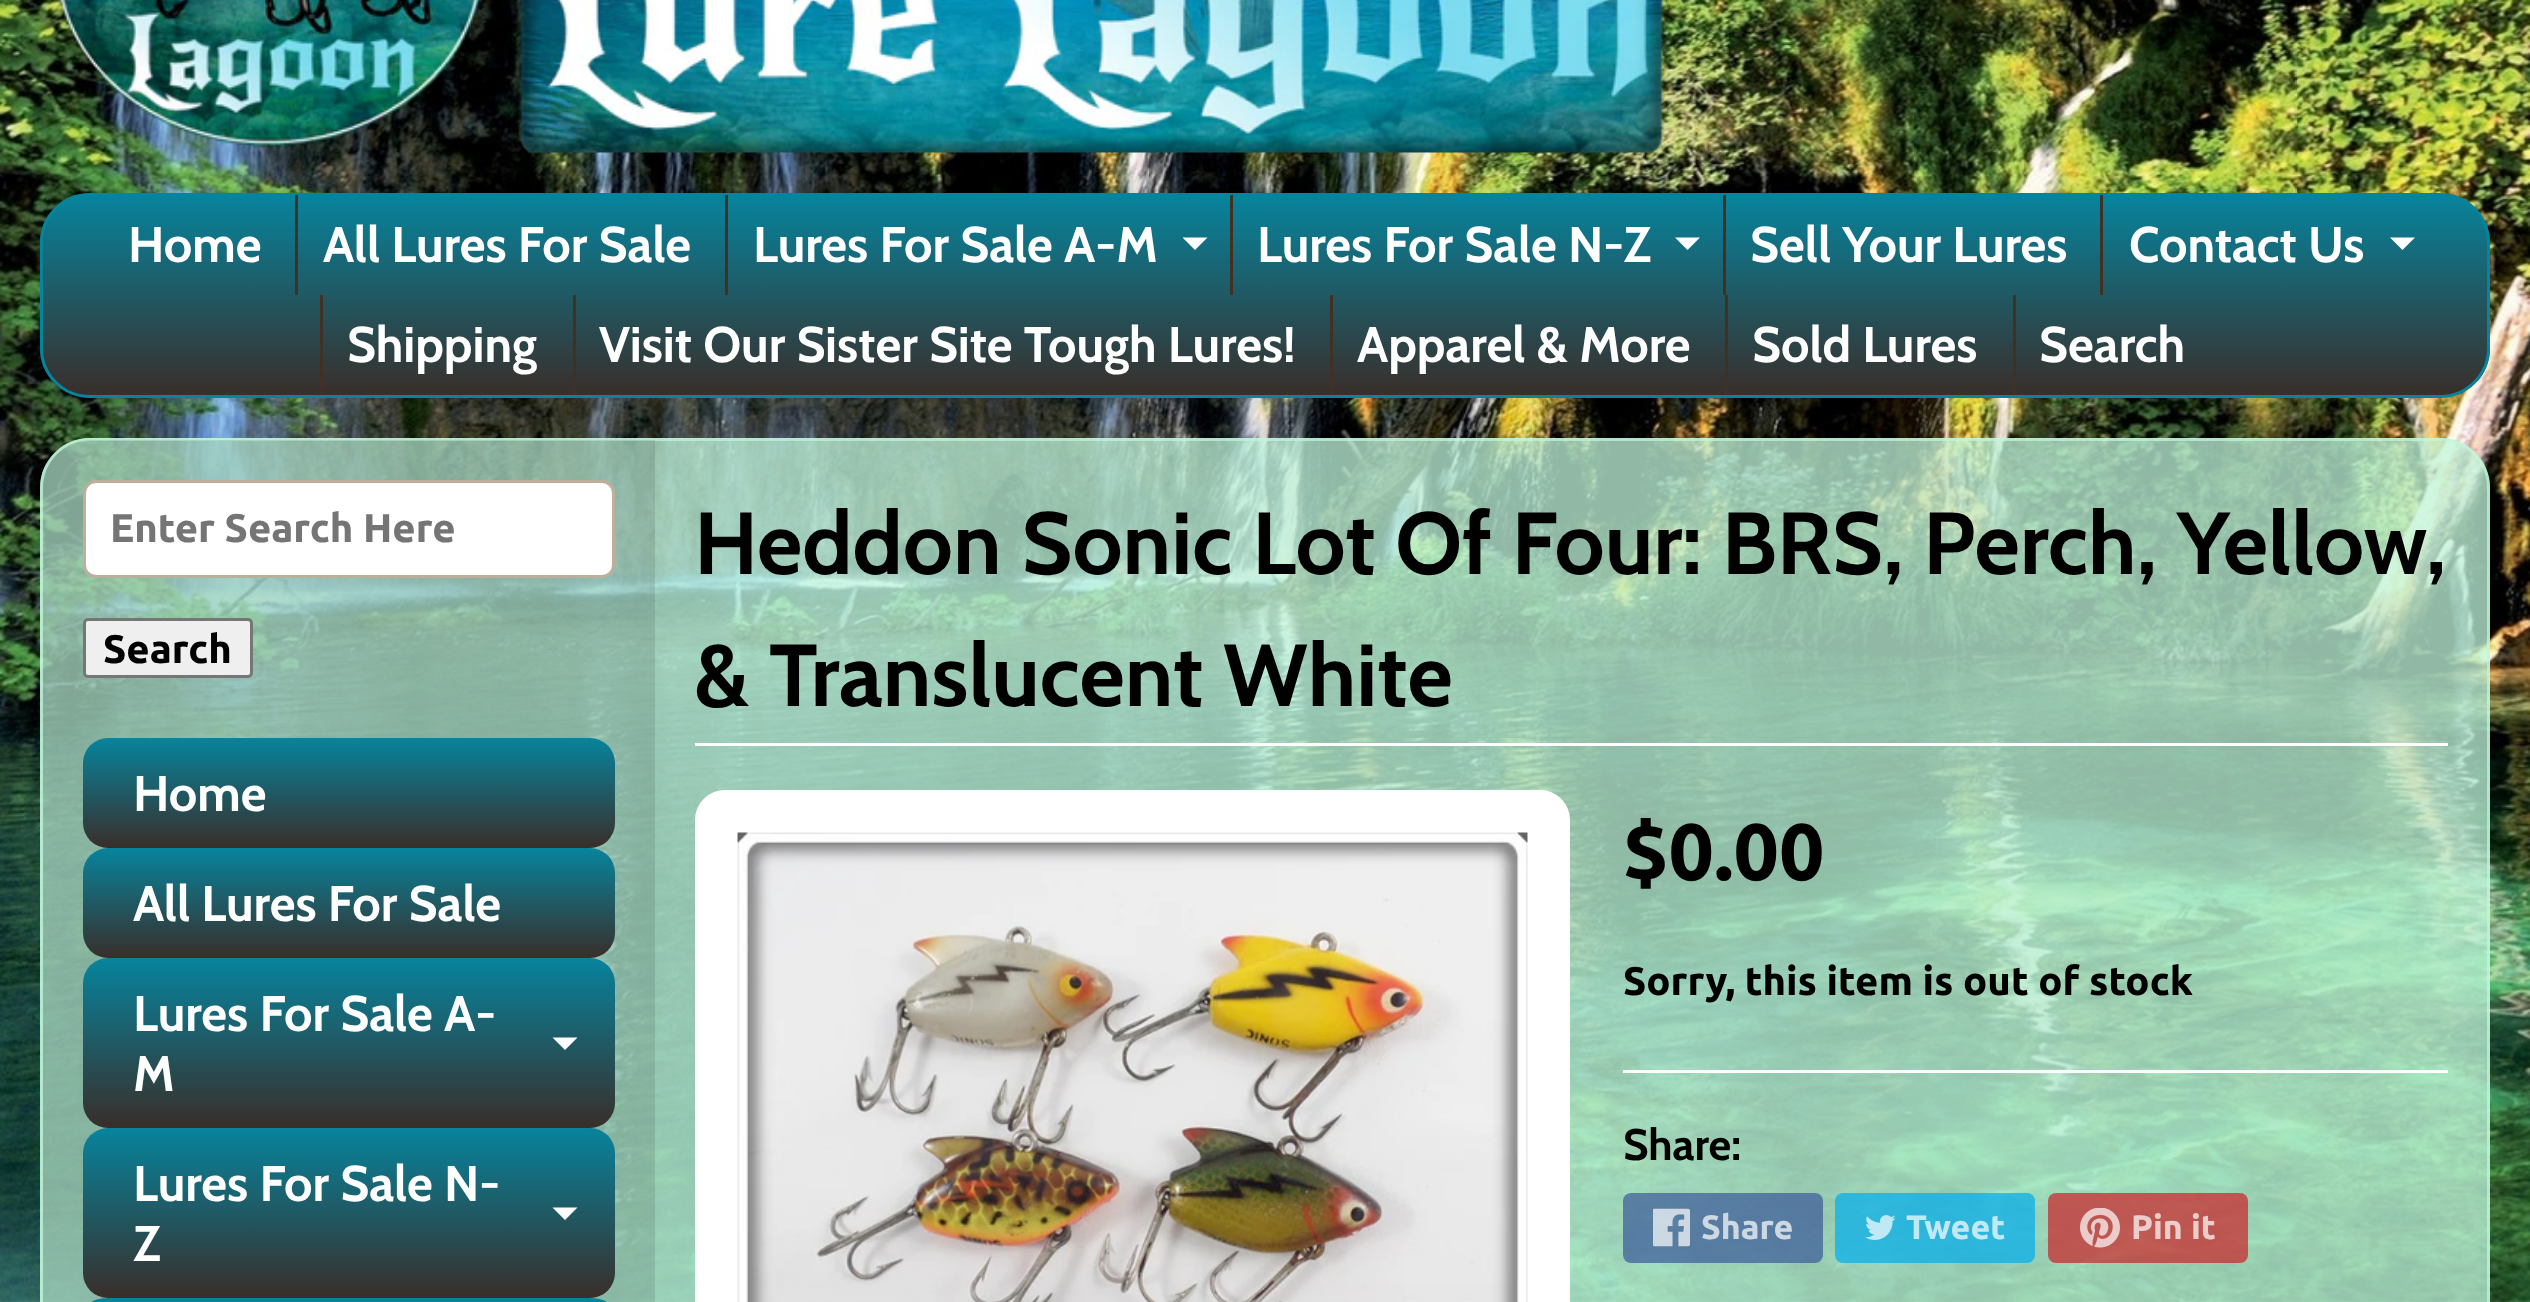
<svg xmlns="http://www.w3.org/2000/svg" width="2530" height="1302">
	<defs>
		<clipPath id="clip1"><rect x="40" y="193" width="2450" height="205" rx="50" /></clipPath>
		<linearGradient id="g1" gradientUnits="userSpaceOnUse" x1="1265" y1="195" x2="1265" y2="395"><stop offset="0" stop-color="#07849D" /><stop offset="1" stop-color="#392E2A" /></linearGradient>
		<linearGradient id="g2" gradientUnits="userSpaceOnUse" x1="349" y1="738" x2="349" y2="848"><stop offset="0" stop-color="#07849D" /><stop offset="1" stop-color="#392E2A" /></linearGradient>
		<linearGradient id="g3" gradientUnits="userSpaceOnUse" x1="349" y1="848" x2="349" y2="958"><stop offset="0" stop-color="#07849D" /><stop offset="1" stop-color="#392E2A" /></linearGradient>
		<linearGradient id="g4" gradientUnits="userSpaceOnUse" x1="349" y1="958" x2="349" y2="1128"><stop offset="0" stop-color="#07849D" /><stop offset="1" stop-color="#392E2A" /></linearGradient>
		<linearGradient id="g5" gradientUnits="userSpaceOnUse" x1="349" y1="1128" x2="349" y2="1298"><stop offset="0" stop-color="#07849D" /><stop offset="1" stop-color="#392E2A" /></linearGradient>
		<linearGradient id="g6" gradientUnits="userSpaceOnUse" x1="349" y1="1298" x2="349" y2="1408"><stop offset="0" stop-color="#07849D" /><stop offset="1" stop-color="#392E2A" /></linearGradient>
	</defs>
	<rect width="100%" height="100%" fill="#FFFFFF" />
	<image x="0" y="0" width="2530" height="1302" href="assets/img1.png" />
	<image x="59" y="0" width="1605" height="153" href="assets/img2.png" />
	<g clip-path="url(#clip1)">
		<rect x="40" y="195" width="2450" height="200" fill="url(#g1)" />
	</g>
	<rect x="41.5" y="194.5" width="2447" height="202" rx="48.5" fill="none" stroke="#07849D" stroke-width="3" />
	<text x="128" y="262" font-family="Cabin" font-size="50" font-weight="700" fill="#FFFFFF">Home</text>
	<rect x="295" y="195" width="3" height="100" fill="#413124" />
	<text x="323" y="262" font-family="Cabin" font-size="50" font-weight="700" fill="#FFFFFF">All Lures For Sale</text>
	<rect x="725" y="195" width="3" height="100" fill="#413124" />
	<text x="753" y="262" font-family="Cabin" font-size="50" font-weight="700" fill="#FFFFFF">Lures For Sale A-M</text>
	<path d="M1182.5 237.5H1207.5L1195 250Z" fill="#FFFFFF" />
	<rect x="1230" y="195" width="3" height="100" fill="#413124" />
	<text x="1257" y="262" font-family="Cabin" font-size="50" font-weight="700" fill="#FFFFFF">Lures For Sale N-Z</text>
	<path d="M1675 237.5H1700L1687.5 250Z" fill="#FFFFFF" />
	<rect x="1723" y="195" width="3" height="100" fill="#413124" />
	<text x="1750" y="262" font-family="Cabin" font-size="50" font-weight="700" fill="#FFFFFF">Sell Your Lures</text>
	<rect x="2100" y="195" width="3" height="100" fill="#413124" />
	<text x="2129" y="262" font-family="Cabin" font-size="50" font-weight="700" fill="#FFFFFF">Contact Us</text>
	<path d="M2390 237.5H2415L2402.5 250Z" fill="#FFFFFF" />
	<rect x="320" y="295" width="3" height="100" fill="#413124" />
	<text x="347" y="362" font-family="Cabin" font-size="50" font-weight="700" fill="#FFFFFF">Shipping</text>
	<rect x="573" y="295" width="3" height="100" fill="#413124" />
	<text x="599" y="362" font-family="Cabin" font-size="50" font-weight="700" fill="#FFFFFF">Visit Our Sister Site Tough Lures!</text>
	<rect x="1330" y="295" width="3" height="100" fill="#413124" />
	<text x="1357" y="362" font-family="Cabin" font-size="50" font-weight="700" fill="#FFFFFF">Apparel &amp; More</text>
	<rect x="1725" y="295" width="3" height="100" fill="#413124" />
	<text x="1752" y="362" font-family="Cabin" font-size="50" font-weight="700" fill="#FFFFFF">Sold Lures</text>
	<rect x="2013" y="295" width="3" height="100" fill="#413124" />
	<text x="2039" y="362" font-family="Cabin" font-size="50" font-weight="700" fill="#FFFFFF">Search</text>
	<rect x="40" y="438" width="2450" height="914" rx="50" fill="#C0F6DC" fill-opacity="0.75" />
	<rect x="41.5" y="439.5" width="2447" height="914" rx="48.5" fill="none" stroke="#C0F6DC" stroke-opacity="0.7" stroke-width="3" />
	<path d="M91 440H655V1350H91C64.5 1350 43 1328.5 43 1302V488C43 461.5 64.5 440 91 440Z" fill="#000000" fill-opacity="0.1" />
	<rect x="84.5" y="481.5" width="529" height="95" rx="11.5" fill="#FFFFFF" stroke="#BDAF9B" stroke-width="3" />
	<text x="110" y="542" font-family="Ubuntu" font-size="40" font-weight="700" fill="#757575">Enter Search Here</text>
	<rect x="84.5" y="619.5" width="167" height="57" rx="3.5" fill="#EFEFEF" stroke="#767676" stroke-width="3" />
	<text x="103" y="663" font-family="Ubuntu" font-size="40" font-weight="700" fill="#000000">Search</text>
	<rect x="83" y="738" width="532" height="110" rx="25" fill="url(#g2)" />
	<text x="133" y="811" font-family="Cabin" font-size="50" font-weight="700" fill="#FFFFFF">Home</text>
	<rect x="83" y="848" width="532" height="110" rx="25" fill="url(#g3)" />
	<text x="133" y="921" font-family="Cabin" font-size="50" font-weight="700" fill="#FFFFFF">All Lures For Sale</text>
	<rect x="83" y="958" width="532" height="170" rx="25" fill="url(#g4)" />
	<text x="133" y="1031" font-family="Cabin" font-size="50" font-weight="700" fill="#FFFFFF">Lures For Sale A-</text>
	<path d="M552.5 1037.5H577.5L565 1050Z" fill="#FFFFFF" />
	<text x="133" y="1091" font-family="Cabin" font-size="50" font-weight="700" fill="#FFFFFF">M</text>
	<rect x="83" y="1128" width="532" height="170" rx="25" fill="url(#g5)" />
	<text x="133" y="1201" font-family="Cabin" font-size="50" font-weight="700" fill="#FFFFFF">Lures For Sale N-</text>
	<path d="M552.5 1207.5H577.5L565 1220Z" fill="#FFFFFF" />
	<text x="133" y="1261" font-family="Cabin" font-size="50" font-weight="700" fill="#FFFFFF">Z</text>
	<rect x="83" y="1298" width="532" height="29" rx="25" fill="url(#g6)" />
	<rect x="695" y="743" width="1753" height="3" fill="#FFFFFF" />
	<g font-family="Cabin" font-size="88" font-weight="700" fill="#000000">
		<text x="694" y="574">Heddon Sonic Lot Of Four: BRS, Perch, Yellow,</text>
		<text x="694" y="706">&amp; Translucent White</text>
	</g>
	<rect x="696.5" y="791.5" width="872" height="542" rx="28.5" fill="#FFFFFF" stroke="#FFFFFF" stroke-width="3" />
	<image x="737" y="832" width="791" height="470" href="assets/img3.png" />
	<text x="1623" y="880" font-family="Ubuntu" font-size="80" font-weight="700" fill="#000000">$0.00</text>
	<text x="1623" y="995" font-family="Ubuntu" font-size="40" font-weight="700" fill="#000000">Sorry, this item is out of stock</text>
	<rect x="1623" y="1070" width="825" height="3" fill="#FFFFFF" />
	<text x="1623" y="1160" font-family="Cabin" font-size="44" font-weight="700" fill="#000000">Share:</text>
	<rect x="1623" y="1193" width="200" height="70" rx="8" fill="#3B5998" fill-opacity="0.7" />
	<image x="1653" y="1208" width="37" height="39" href="assets/img4.png" />
	<text x="1701" y="1239" font-family="Ubuntu" font-size="34" font-weight="700" fill="#CDD8E3">Share</text>
	<rect x="1835" y="1193" width="200" height="70" rx="8" fill="#00ACED" fill-opacity="0.7" />
	<image x="1865" y="1215" width="31" height="25" href="assets/img5.png" />
	<text x="1906" y="1239" font-family="Ubuntu" font-size="34" font-weight="700" fill="#C0E9F4">Tweet</text>
	<rect x="2048" y="1193" width="200" height="70" rx="8" fill="#CC2127" fill-opacity="0.7" />
	<image x="2080" y="1208" width="40" height="40" href="assets/img6.png" />
	<text x="2131" y="1239" font-family="Ubuntu" font-size="34" font-weight="700" fill="#EBCDCB">Pin it</text>
</svg>
